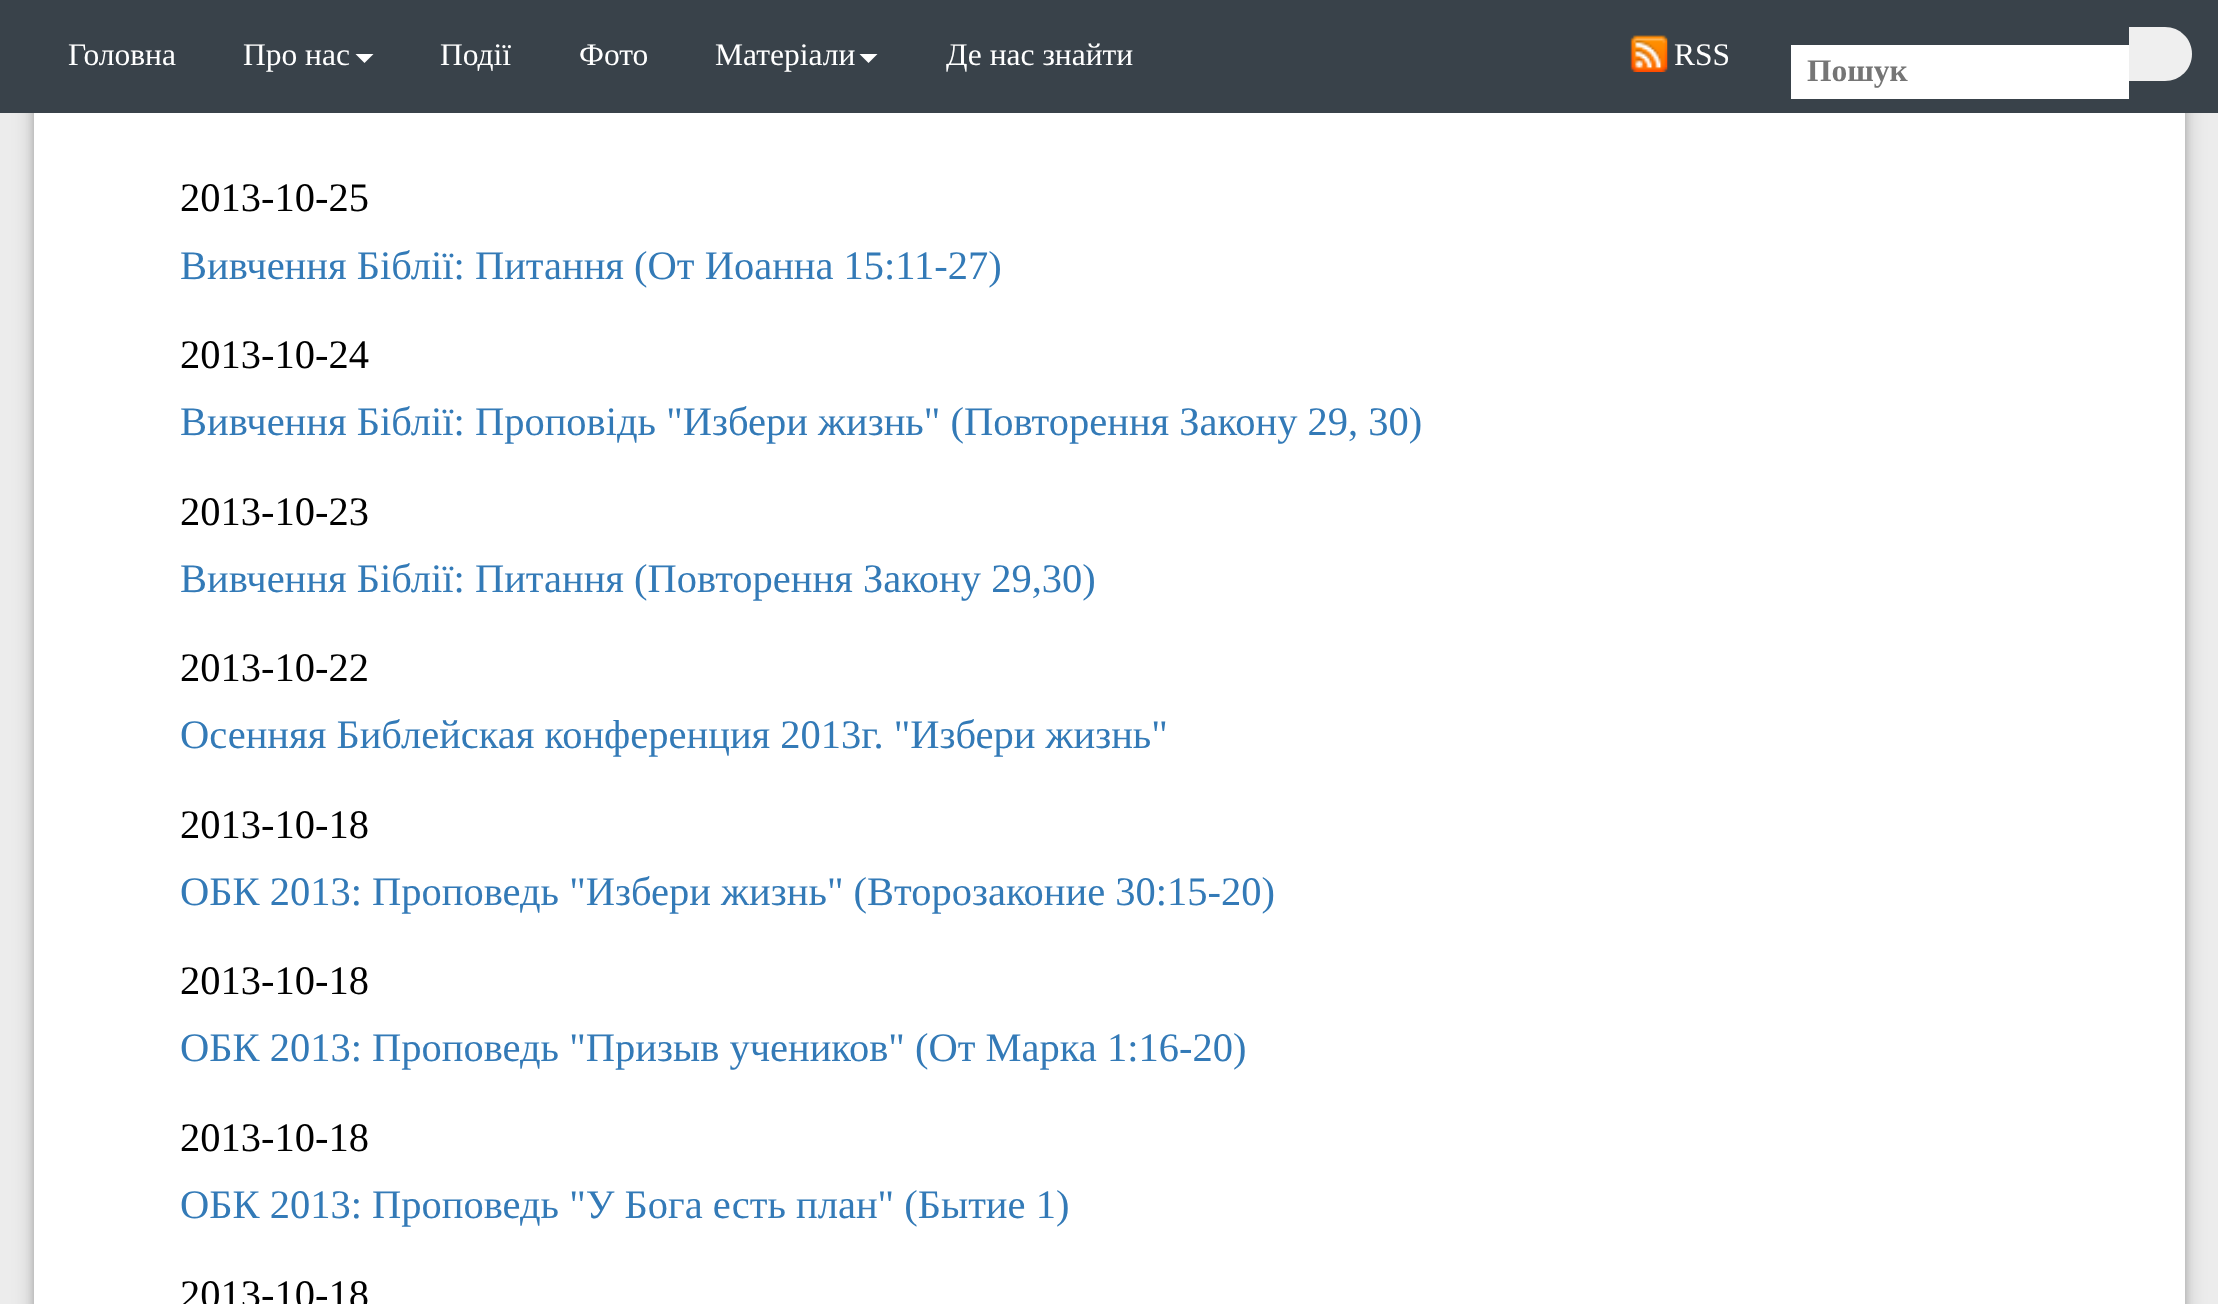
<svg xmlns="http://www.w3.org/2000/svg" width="2218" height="1304">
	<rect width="100%" height="100%" fill="#ECECEC" />
	<rect x="34" y="-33" width="2151" height="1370" fill="#000000" fill-opacity="0.19" filter="blur(11px)" />
	<rect x="34" y="-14" width="2151" height="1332" fill="#000000" fill-opacity="0.2" filter="blur(4.5px)" />
	<rect x="0" y="0" width="2218" height="113" fill="#39424A" />
	<g font-family="Liberation Serif" font-size="31.5" fill="#FFFFFF">
		<text x="68" y="65">Головна</text>
		<text x="243" y="65">Про нас</text>
	</g>
	<path d="M355.5 54H373.5L364.5 63Z" fill="#FFFFFF" />
	<g font-family="Liberation Serif" font-size="31.5" fill="#FFFFFF">
		<text x="440" y="65">Події</text>
		<text x="579" y="65">Фото</text>
		<text x="715" y="65">Матеріали</text>
	</g>
	<path d="M859.5 54H877.5L868.5 63Z" fill="#FFFFFF" />
	<text x="946" y="65" font-family="Liberation Serif" font-size="31.5" fill="#FFFFFF">Де нас знайти</text>
	<image x="1630" y="35" width="38" height="37" href="assets/img1.png" />
	<text x="1674" y="65" font-family="Liberation Serif" font-size="31.5" fill="#FFFFFF">RSS</text>
	<rect x="1791" y="45" width="338" height="54" fill="#FFFFFF" />
	<text x="1807" y="81" font-family="Liberation Serif" font-size="31.5" font-weight="700" fill="#757575">Пошук</text>
	<path d="M2129 27H2165C2180 27 2192 39 2192 54C2192 69 2180 81 2165 81H2129Z" fill="#EFEFEF" />
	<rect x="34" y="113" width="2151" height="1191" fill="#FFFFFF" />
	<text x="180" y="211" font-family="Liberation Serif" font-size="40.5" fill="#000000">2013-10-25</text>
	<text x="180" y="279" font-family="Liberation Serif" font-size="40.5" fill="#337AB7">Вивчення Біблії: Питання (От Иоанна 15:11-27)</text>
	<text x="180" y="368" font-family="Liberation Serif" font-size="40.5" fill="#000000">2013-10-24</text>
	<text x="180" y="435" font-family="Liberation Serif" font-size="40.5" fill="#337AB7">Вивчення Біблії: Проповідь "Избери жизнь" (Повторення Закону 29, 30)</text>
	<text x="180" y="525" font-family="Liberation Serif" font-size="40.5" fill="#000000">2013-10-23</text>
	<text x="180" y="592" font-family="Liberation Serif" font-size="40.5" fill="#337AB7">Вивчення Біблії: Питання (Повторення Закону 29,30)</text>
	<text x="180" y="681" font-family="Liberation Serif" font-size="40.5" fill="#000000">2013-10-22</text>
	<text x="180" y="748" font-family="Liberation Serif" font-size="40.5" fill="#337AB7">Осенняя Библейская конференция 2013г. "Избери жизнь"</text>
	<text x="180" y="838" font-family="Liberation Serif" font-size="40.5" fill="#000000">2013-10-18</text>
	<text x="180" y="905" font-family="Liberation Serif" font-size="40.5" fill="#337AB7">ОБК 2013: Проповедь "Избери жизнь" (Второзаконие 30:15-20)</text>
	<text x="180" y="994" font-family="Liberation Serif" font-size="40.5" fill="#000000">2013-10-18</text>
	<text x="180" y="1061" font-family="Liberation Serif" font-size="40.5" fill="#337AB7">ОБК 2013: Проповедь "Призыв учеников" (От Марка 1:16-20)</text>
	<text x="180" y="1151" font-family="Liberation Serif" font-size="40.5" fill="#000000">2013-10-18</text>
	<text x="180" y="1218" font-family="Liberation Serif" font-size="40.5" fill="#337AB7">ОБК 2013: Проповедь "У Бога есть план" (Бытие 1)</text>
	<text x="180" y="1308" font-family="Liberation Serif" font-size="40.5" fill="#000000">2013-10-18</text>
</svg>
